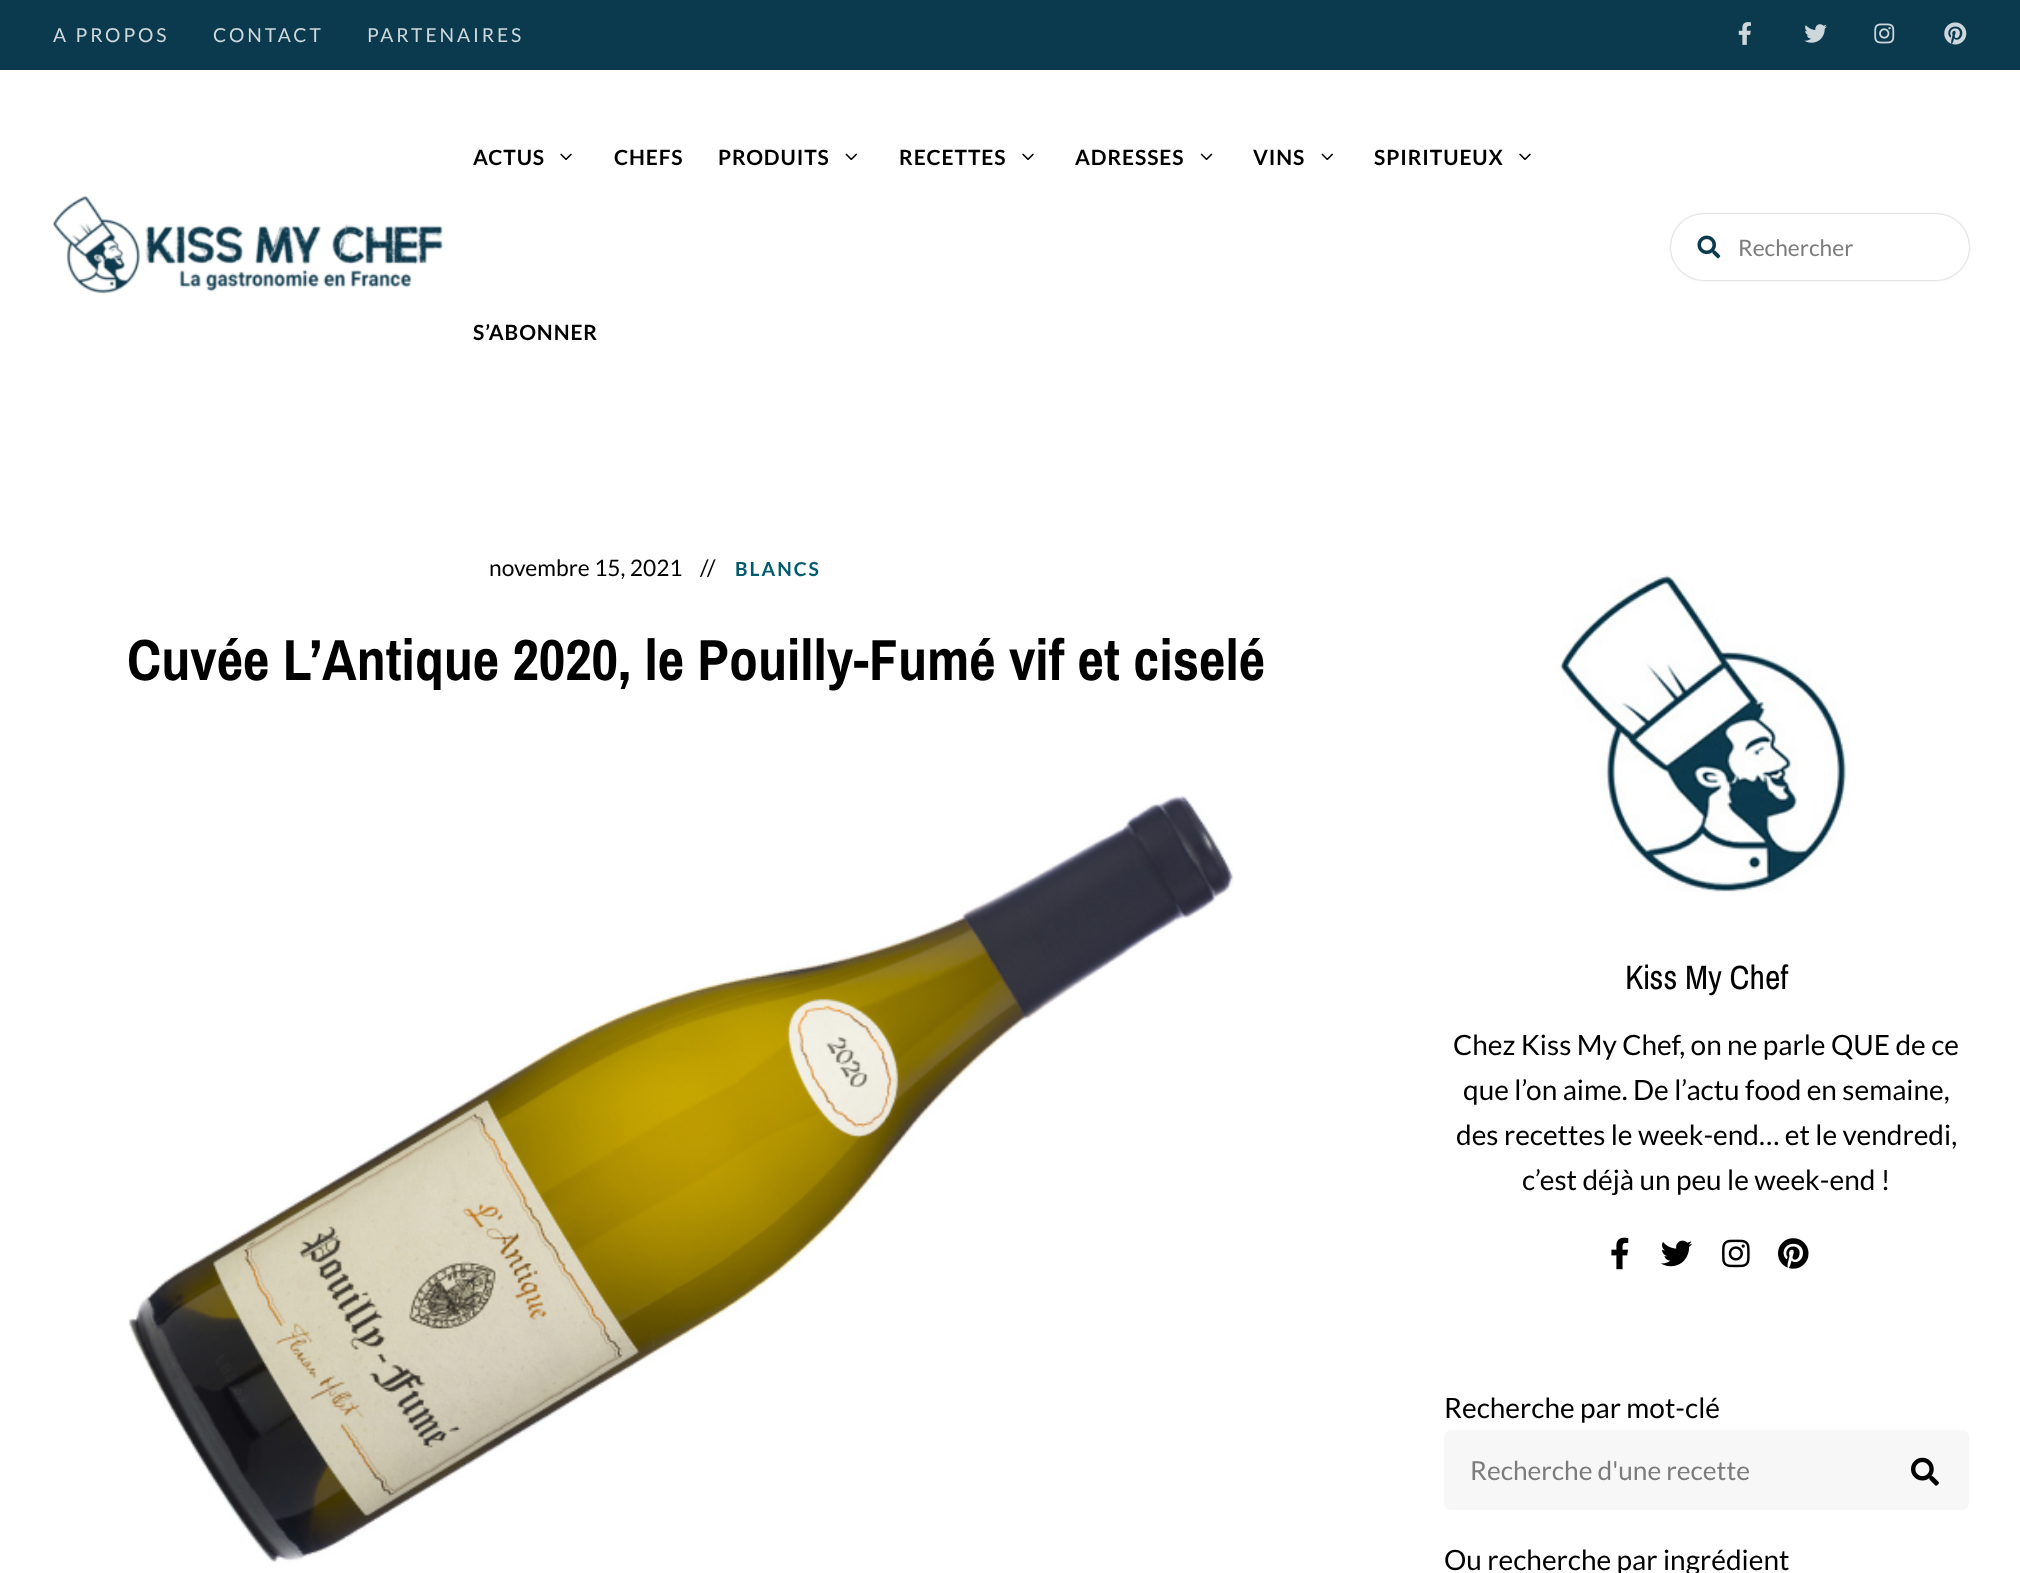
<svg xmlns="http://www.w3.org/2000/svg" width="2020" height="1573">
	<rect width="100%" height="100%" fill="#FFFFFF" />
	<rect x="0" y="0" width="2020" height="70" fill="#0B3A4F" />
	<g font-family="Lato" font-size="19.25" letter-spacing="2.9" fill="#CED8DC">
		<text x="53" y="42">A PROPOS</text>
		<text x="213" y="42">CONTACT</text>
		<text x="367" y="42">PARTENAIRES</text>
	</g>
	<image x="1738" y="22" width="13" height="23" href="assets/img1.png" />
	<image x="1804" y="24" width="23" height="19" href="assets/img2.png" />
	<image x="1874" y="23" width="21" height="21" href="assets/img3.png" />
	<image x="1944" y="22" width="23" height="23" href="assets/img4.png" />
	<image x="52" y="196" width="392" height="98" href="assets/img5.png" />
	<text x="473" y="165" font-family="Lato" font-size="21" font-weight="700" letter-spacing="0.9" fill="#000000">ACTUS</text>
	<image x="560" y="153" width="12" height="7" href="assets/img6.png" />
	<g font-family="Lato" font-size="21" font-weight="700" letter-spacing="0.9" fill="#000000">
		<text x="614" y="165">CHEFS</text>
		<text x="718" y="165">PRODUITS</text>
	</g>
	<image x="845" y="153" width="12" height="8" href="assets/img7.png" />
	<text x="899" y="165" font-family="Lato" font-size="21" font-weight="700" letter-spacing="0.9" fill="#000000">RECETTES</text>
	<image x="1022" y="153" width="12" height="7" href="assets/img6.png" />
	<text x="1075" y="165" font-family="Lato" font-size="21" font-weight="700" letter-spacing="0.9" fill="#000000">ADRESSES</text>
	<image x="1200" y="153" width="13" height="8" href="assets/img8.png" />
	<text x="1253" y="165" font-family="Lato" font-size="21" font-weight="700" letter-spacing="0.9" fill="#000000">VINS</text>
	<image x="1321" y="153" width="12" height="8" href="assets/img7.png" />
	<text x="1374" y="165" font-family="Lato" font-size="21" font-weight="700" letter-spacing="0.9" fill="#000000">SPIRITUEUX</text>
	<image x="1519" y="153" width="12" height="7" href="assets/img6.png" />
	<text x="473" y="340" font-family="Lato" font-size="21" font-weight="700" letter-spacing="0.9" fill="#000000">S’ABONNER</text>
	<rect x="1671" y="214" width="298" height="66" rx="33" fill="#000000" fill-opacity="0.3" filter="blur(1px)" />
	<rect x="1671" y="214" width="298" height="66" rx="33" fill="#FFFFFF" />
	<image x="1697" y="235" width="24" height="24" href="assets/img9.png" />
	<text x="1738" y="256" font-family="Lato" font-size="22.75" fill="#7C7C7C">Rechercher</text>
	<g font-family="Lato" font-size="22.75" fill="#000000">
		<text x="489" y="576">novembre 15, 2021</text>
		<text x="700" y="576">//</text>
	</g>
	<text x="735" y="576" font-family="Lato" font-size="19.25" font-weight="700" letter-spacing="2" fill="#005B6D">BLANCS</text>
	<text x="127" y="680" font-family="Pragati Narrow" font-size="63" font-weight="700" fill="#000000">Cuvée L’Antique 2020, le Pouilly-Fumé vif et ciselé</text>
	<image x="128" y="795" width="1106" height="769" href="assets/img10.png" />
	<image x="1559" y="574" width="291" height="318" href="assets/img11.png" />
	<text x="1625" y="989" font-family="Pragati Narrow" font-size="36.75" fill="#000000">Kiss My Chef</text>
	<g font-family="Lato" font-size="28" fill="#000000">
		<text x="1453" y="1055">Chez Kiss My Chef, on ne parle QUE de ce</text>
		<text x="1463" y="1100">que l’on aime. De l’actu food en semaine,</text>
		<text x="1456" y="1145">des recettes le week-end… et le vendredi,</text>
		<text x="1522" y="1190">c’est déjà un peu le week-end !</text>
	</g>
	<image x="1611" y="1237" width="18" height="33" href="assets/img12.png" />
	<image x="1661" y="1240" width="32" height="27" href="assets/img13.png" />
	<image x="1722" y="1239" width="28" height="29" href="assets/img14.png" />
	<image x="1778" y="1238" width="31" height="31" href="assets/img15.png" />
	<text x="1444" y="1418" font-family="Lato" font-size="28" fill="#000000">Recherche par mot-clé</text>
	<rect x="1444" y="1430" width="525" height="80" rx="7" fill="#F7F7F7" />
	<text x="1470" y="1480" font-family="Lato" font-size="26.25" fill="#7C7C7C">Recherche d'une recette</text>
	<image x="1911" y="1457" width="28" height="29" href="assets/img16.png" />
	<text x="1444" y="1570" font-family="Lato" font-size="28" fill="#000000">Ou recherche par ingrédient</text>
</svg>
